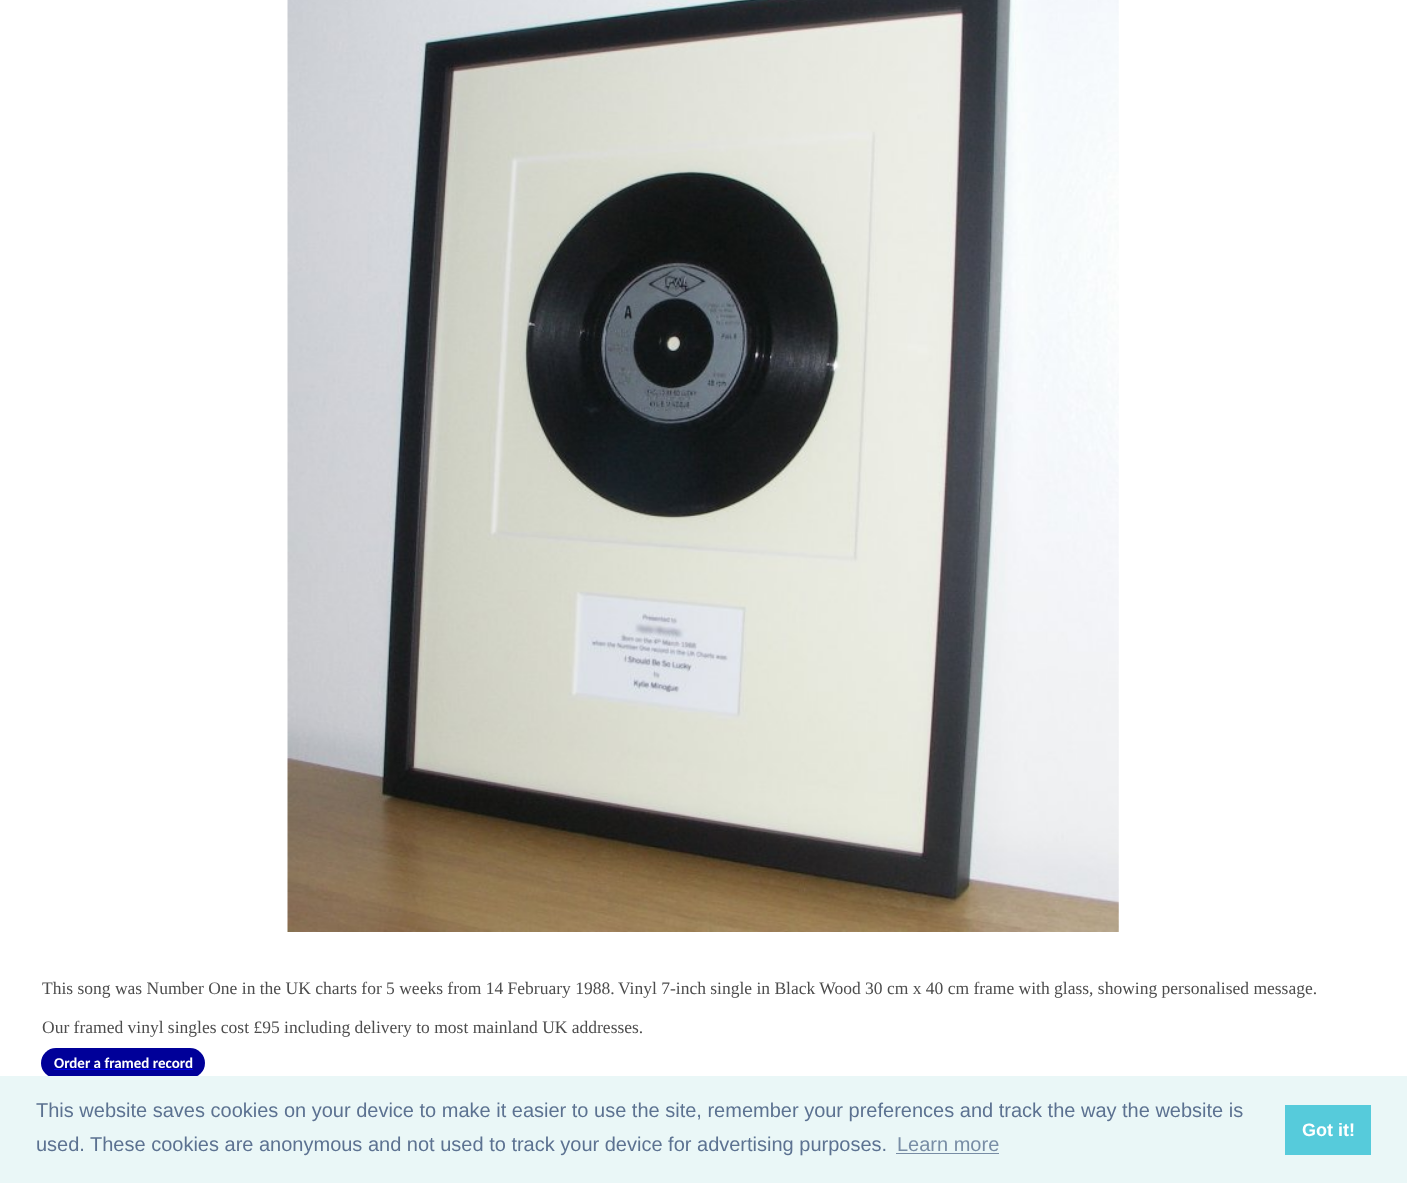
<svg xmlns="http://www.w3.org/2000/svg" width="1407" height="1183">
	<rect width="100%" height="100%" fill="#FFFFFF" />
	<image x="287" y="0" width="832" height="932" href="assets/img1.png" />
	<g font-family="Liberation Serif" font-size="17.5" fill="#4D4D4D">
		<text x="42" y="994">This song was Number One in the UK charts for 5 weeks from 14 February 1988.</text>
		<text x="618" y="994">Vinyl 7-inch single in Black Wood 30 cm x 40 cm frame with glass, showing personalised message.</text>
		<text x="42" y="1033">Our framed vinyl singles cost £95 including delivery to most mainland UK addresses.</text>
	</g>
	<rect x="41" y="1048" width="164" height="30" rx="15" fill="#000099" />
	<text x="54" y="1068" font-family="Carlito" font-size="15" font-weight="700" fill="#FFFFFF">Order a framed record</text>
	<rect x="54" y="1069" width="139" height="1" fill="#0000EE" />
	<rect x="0" y="1076" width="1407" height="107" fill="#EAF7F7" />
	<g font-family="Liberation Sans" font-size="20" fill="#5C7291">
		<text x="36" y="1117">This website saves cookies on your device to make it easier to use the site, remember your preferences and track the way the website is</text>
		<text x="36" y="1151">used.</text>
		<text x="90" y="1151">These cookies are anonymous and not used to track your device for advertising purposes.</text>
	</g>
	<text x="897" y="1151" font-family="Liberation Sans" font-size="20" fill="#788DA5">Learn more</text>
	<rect x="896" y="1153" width="103" height="1" fill="#788DA5" />
	<rect x="1285" y="1105" width="86" height="50" fill="#56CBDB" />
	<text x="1302" y="1136" font-family="Liberation Sans" font-size="18" font-weight="700" fill="#FFFFFF">Got it!</text>
</svg>
